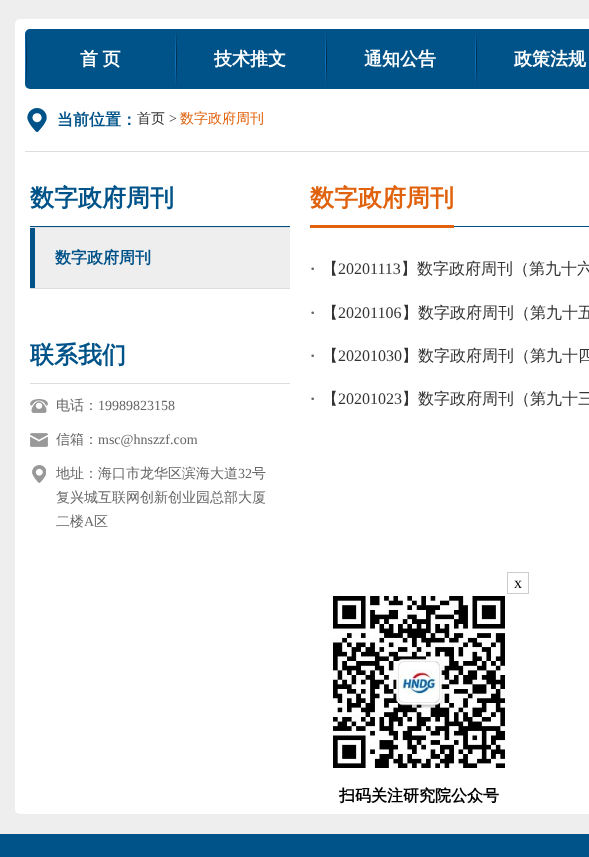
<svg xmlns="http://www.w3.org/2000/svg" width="589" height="857">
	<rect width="100%" height="100%" fill="#EEEEEE" />
	<rect x="15" y="19" width="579" height="795" rx="5" fill="#FFFFFF" />
	<rect x="25" y="29" width="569" height="60" rx="5" fill="#005389" />
	<image x="25" y="32" width="2" height="54" href="assets/img1.png" />
	<text x="80" y="65" word-spacing="-1" font-family="WenQuanYi Zen Hei" font-size="18" font-weight="700" fill="#FFFFFF">首 页</text>
	<image x="175" y="32" width="2" height="54" href="assets/img2.png" />
	<text x="214" y="65" font-family="WenQuanYi Zen Hei" font-size="18" font-weight="700" fill="#FFFFFF">技术推文</text>
	<image x="325" y="32" width="2" height="54" href="assets/img2.png" />
	<text x="364" y="65" font-family="WenQuanYi Zen Hei" font-size="18" font-weight="700" fill="#FFFFFF">通知公告</text>
	<image x="475" y="32" width="2" height="54" href="assets/img2.png" />
	<text x="514" y="65" font-family="WenQuanYi Zen Hei" font-size="18" font-weight="700" fill="#FFFFFF">政策法规</text>
	<rect x="25" y="151" width="564" height="1" fill="#DDDDDD" />
	<image x="27" y="108" width="20" height="24" href="assets/img3.png" />
	<text x="57" y="125" font-family="WenQuanYi Zen Hei" font-size="16" font-weight="700" fill="#005389">当前位置：</text>
	<text x="137" y="123" font-family="WenQuanYi Zen Hei" font-size="14" font-weight="500" fill="#333333">首页</text>
	<text x="169" y="123" font-family="Liberation Serif" font-size="14" fill="#333333">&gt;</text>
	<text x="180" y="123" font-family="WenQuanYi Zen Hei" font-size="14" font-weight="500" fill="#E0620D">数字政府周刊</text>
	<rect x="30" y="226" width="260" height="1" fill="#005389" />
	<text x="30" y="206" font-family="WenQuanYi Zen Hei" font-size="24" font-weight="700" fill="#005389">数字政府周刊</text>
	<rect x="35" y="228" width="255" height="60" fill="#EEEEEE" />
	<rect x="30" y="227" width="260" height="1" fill="#DDDDDD" />
	<rect x="30" y="288" width="260" height="1" fill="#DDDDDD" />
	<rect x="30" y="228" width="5" height="60" fill="#005389" />
	<text x="55" y="263" font-family="WenQuanYi Zen Hei" font-size="16" font-weight="700" fill="#005389">数字政府周刊</text>
	<rect x="30" y="383" width="260" height="1" fill="#DDDDDD" />
	<text x="30" y="363" font-family="WenQuanYi Zen Hei" font-size="24" font-weight="700" fill="#005389">联系我们</text>
	<image x="30" y="399" width="18" height="14" href="assets/img4.png" />
	<text x="56" y="410" font-family="WenQuanYi Zen Hei" font-size="14" font-weight="500" fill="#666666">电话：</text>
	<text x="98" y="410" font-family="Liberation Serif" font-size="14" fill="#666666">19989823158</text>
	<image x="30" y="433" width="18" height="14" href="assets/img5.png" />
	<text x="56" y="444" font-family="WenQuanYi Zen Hei" font-size="14" font-weight="500" fill="#666666">信箱：</text>
	<text x="98" y="444" font-family="Liberation Serif" font-size="14" fill="#666666">msc@hnszzf.com</text>
	<image x="32" y="465" width="14" height="18" href="assets/img6.png" />
	<text x="56" y="478" font-family="WenQuanYi Zen Hei" font-size="14" font-weight="500" fill="#666666">地址：海口市龙华区滨海大道</text>
	<text x="238" y="478" font-family="Liberation Serif" font-size="14" fill="#666666">32</text>
	<g font-family="WenQuanYi Zen Hei" font-size="14" font-weight="500" fill="#666666">
		<text x="252" y="478">号</text>
		<text x="56" y="502">复兴城互联网创新创业园总部大厦</text>
		<text x="56" y="526">二楼</text>
	</g>
	<text x="84" y="526" font-family="Liberation Serif" font-size="14" fill="#666666">A</text>
	<text x="94" y="526" font-family="WenQuanYi Zen Hei" font-size="14" font-weight="500" fill="#666666">区</text>
	<rect x="454" y="226" width="135" height="1" fill="#005389" />
	<text x="310" y="206" font-family="WenQuanYi Zen Hei" font-size="24" font-weight="700" fill="#E0620D">数字政府周刊</text>
	<rect x="310" y="225" width="144" height="3" fill="#E0620D" />
	<text x="310" y="274" font-family="Liberation Serif" font-size="16" font-weight="700" fill="#666666">·</text>
	<text x="322" y="274" font-family="WenQuanYi Zen Hei" font-size="16" font-weight="500" fill="#333333">【</text>
	<text x="338" y="274" font-family="Liberation Serif" font-size="16" fill="#333333">20201113</text>
	<text x="401" y="274" font-family="WenQuanYi Zen Hei" font-size="16" font-weight="500" fill="#333333">】数字政府周刊（第九十六</text>
	<text x="310" y="318" font-family="Liberation Serif" font-size="16" font-weight="700" fill="#666666">·</text>
	<text x="322" y="318" font-family="WenQuanYi Zen Hei" font-size="16" font-weight="500" fill="#333333">【</text>
	<text x="338" y="318" font-family="Liberation Serif" font-size="16" fill="#333333">20201106</text>
	<text x="402" y="318" font-family="WenQuanYi Zen Hei" font-size="16" font-weight="500" fill="#333333">】数字政府周刊（第九十五</text>
	<text x="310" y="361" font-family="Liberation Serif" font-size="16" font-weight="700" fill="#666666">·</text>
	<text x="322" y="361" font-family="WenQuanYi Zen Hei" font-size="16" font-weight="500" fill="#333333">【</text>
	<text x="338" y="361" font-family="Liberation Serif" font-size="16" fill="#333333">20201030</text>
	<text x="402" y="361" font-family="WenQuanYi Zen Hei" font-size="16" font-weight="500" fill="#333333">】数字政府周刊（第九十四</text>
	<text x="310" y="404" font-family="Liberation Serif" font-size="16" font-weight="700" fill="#666666">·</text>
	<text x="322" y="404" font-family="WenQuanYi Zen Hei" font-size="16" font-weight="500" fill="#333333">【</text>
	<text x="338" y="404" font-family="Liberation Serif" font-size="16" fill="#333333">20201023</text>
	<text x="402" y="404" font-family="WenQuanYi Zen Hei" font-size="16" font-weight="500" fill="#333333">】数字政府周刊（第九十三</text>
	<rect x="507.5" y="572.5" width="21" height="21" fill="none" stroke="#CCCCCC" />
	<text x="514" y="588" font-family="Liberation Serif" font-size="16" fill="#000000">x</text>
	<image x="331" y="594" width="174" height="174" href="assets/img7.png" />
	<text x="339" y="801" font-family="WenQuanYi Zen Hei" font-size="16" font-weight="700" fill="#000000">扫码关注研究院公众号</text>
	<rect x="0" y="834" width="589" height="23" fill="#005389" />
</svg>
